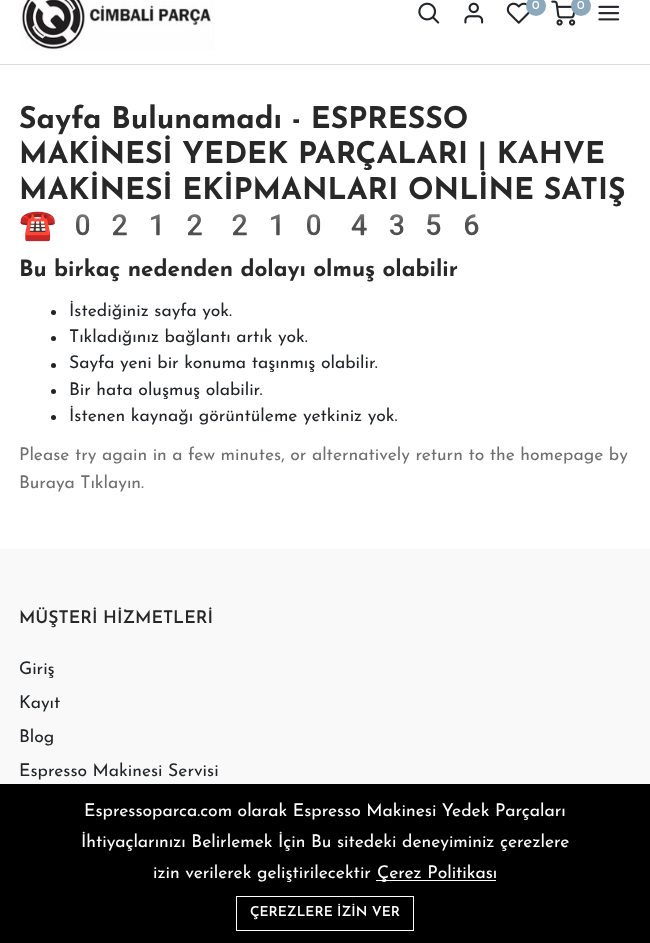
<svg xmlns="http://www.w3.org/2000/svg" width="650" height="943">
	<rect width="100%" height="100%" fill="#FFFFFF" />
	<rect x="0" y="64" width="650" height="1" fill="#DDDDDD" />
	<image x="20" y="0" width="195" height="51" href="assets/img1.png" />
	<image x="418" y="2" width="22" height="22" href="assets/img2.png" />
	<image x="464" y="2" width="20" height="22" href="assets/img3.png" />
	<image x="506" y="2" width="24" height="22" href="assets/img4.png" />
	<circle cx="536" cy="6" r="10" fill="#8CA8BC" />
	<text x="532" y="9" font-family="Josefin Sans" font-size="12" fill="#FFFFFF">0</text>
	<image x="551" y="0" width="25" height="26" href="assets/img5.png" />
	<circle cx="581" cy="6" r="10" fill="#8CA8BC" />
	<text x="577" y="9" font-family="Josefin Sans" font-size="12" fill="#FFFFFF">0</text>
	<image x="598" y="5" width="22" height="16" href="assets/img6.png" />
	<g font-family="Josefin Sans" font-size="30" font-weight="700" fill="#282828">
		<text x="19" y="128">Sayfa Bulunamadı - ESPRESSO</text>
		<text x="19" y="163">MAKİNESİ YEDEK PARÇALARI | KAHVE</text>
		<text x="19" y="199">MAKİNESİ EKİPMANLARI ONLİNE SATIŞ</text>
	</g>
	<g font-family="Noto Color Emoji" font-size="30" font-weight="700" fill="#282828">
		<text x="19" y="235">☎️</text>
		<text x="64" y="235">0212</text>
		<text x="221" y="235">210</text>
		<text x="341" y="235">4356</text>
	</g>
	<text x="19" y="276" font-family="Josefin Sans" font-size="22.5" font-weight="700" fill="#282828">Bu birkaç nedenden dolayı olmuş olabilir</text>
	<circle cx="53.5" cy="312.5" r="2.5" fill="#212529" />
	<text x="69" y="316" font-family="Josefin Sans" font-size="17.5" fill="#212529">İstediğiniz sayfa yok.</text>
	<circle cx="53.5" cy="338.5" r="2.5" fill="#212529" />
	<text x="69" y="342" font-family="Josefin Sans" font-size="17.5" fill="#212529">Tıkladığınız bağlantı artık yok.</text>
	<circle cx="53.5" cy="365.5" r="2.5" fill="#212529" />
	<text x="69" y="368" font-family="Josefin Sans" font-size="17.5" fill="#212529">Sayfa yeni bir konuma taşınmış olabilir.</text>
	<circle cx="53.5" cy="391.5" r="2.5" fill="#212529" />
	<text x="69" y="395" font-family="Josefin Sans" font-size="17.5" fill="#212529">Bir hata oluşmuş olabilir.</text>
	<circle cx="53.5" cy="417.5" r="2.5" fill="#212529" />
	<text x="69" y="421" font-family="Josefin Sans" font-size="17.5" fill="#212529">İstenen kaynağı görüntüleme yetkiniz yok.</text>
	<g font-family="Josefin Sans" font-size="17.5" fill="#707070">
		<text x="19" y="460">Please try again in a few minutes, or alternatively return to the homepage by</text>
		<text x="19" y="488">Buraya Tıklayın</text>
		<text x="141" y="488">.</text>
	</g>
	<rect x="0" y="549" width="650" height="235" fill="#F9F9F9" />
	<text x="19" y="623" font-family="Josefin Sans" font-size="17.5" font-weight="600" fill="#282828">MÜŞTERİ HİZMETLERİ</text>
	<g font-family="Josefin Sans" font-size="17.5" fill="#212529">
		<text x="19" y="674">Giriş</text>
		<text x="19" y="708">Kayıt</text>
		<text x="19" y="742">Blog</text>
		<text x="19" y="776">Espresso Makinesi Servisi</text>
	</g>
	<rect x="0" y="784" width="650" height="159" fill="#000000" />
	<g font-family="Josefin Sans" font-size="17.5" fill="#FFFFFF">
		<text x="84" y="816">Espressoparca.com olarak Espresso Makinesi Yedek Parçaları</text>
		<text x="81" y="847">İhtiyaçlarınızı Belirlemek İçin Bu sitedeki deneyiminiz çerezlere</text>
		<text x="153" y="878">izin verilerek geliştirilecektir</text>
	</g>
	<rect x="376" y="880" width="120" height="1" fill="#FFFFFF" />
	<text x="377" y="878" font-family="Josefin Sans" font-size="17.5" fill="#FFFFFF">Çerez Politikası</text>
	<rect x="236.5" y="896.5" width="177" height="34" fill="none" stroke="#FFFFFF" />
	<text x="250" y="916" font-family="Josefin Sans" font-size="13.75" font-weight="600" fill="#FFFFFF">ÇEREZLERE İZİN VER</text>
</svg>
